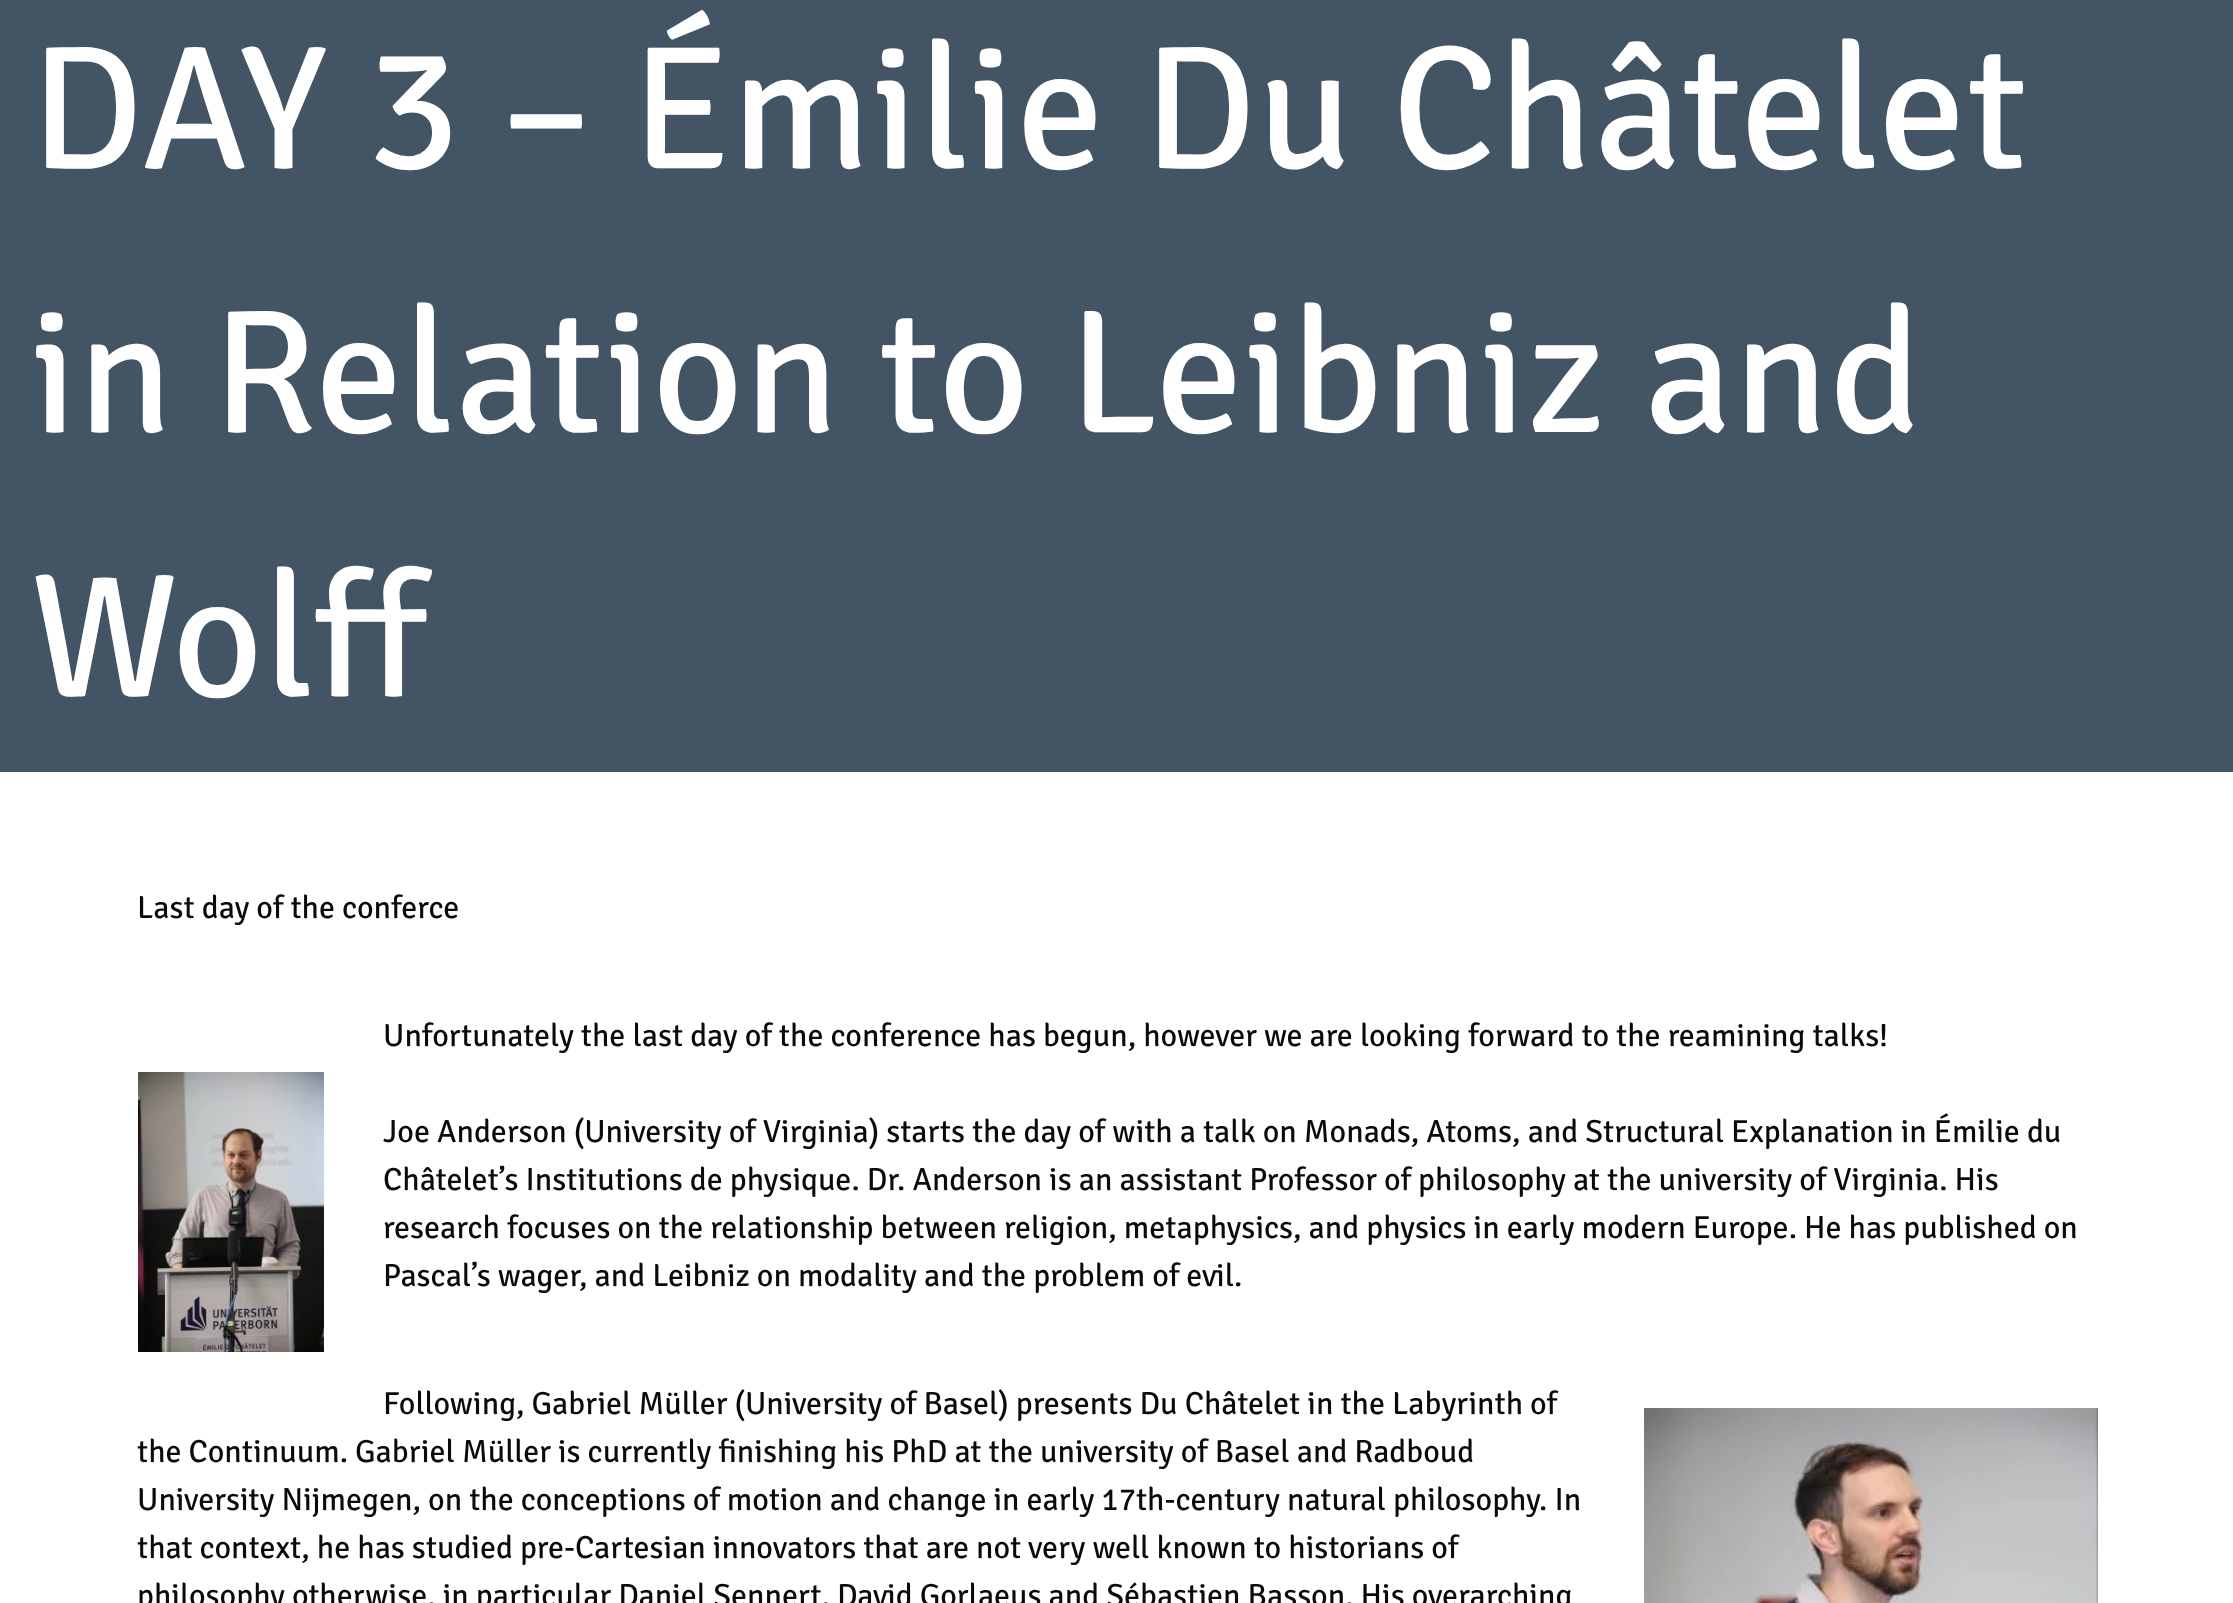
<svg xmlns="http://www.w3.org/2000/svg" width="2233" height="1603">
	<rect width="100%" height="100%" fill="#FFFFFF" />
	<rect x="0" y="0" width="2233" height="772" fill="#435464" />
	<g font-family="Signika Negative" font-size="176" font-weight="300" fill="#FFFFFF">
		<text x="30" y="168">DAY 3 – Émilie Du Châtelet</text>
		<text x="30" y="432">in Relation to Leibniz and</text>
		<text x="30" y="696">Wolff</text>
	</g>
	<g font-family="Signika Negative" font-size="32" font-weight="300" fill="#0A0A0A">
		<text x="137" y="918">Last day of the conferce</text>
		<text x="383" y="1046">Unfortunately the last day of the conference has begun, however we are looking forward to the reamining talks!</text>
	</g>
	<image x="138" y="1072" width="186" height="280" href="assets/img1.png" />
	<g font-family="Signika Negative" font-size="32" font-weight="300" fill="#0A0A0A">
		<text x="383" y="1142">Joe Anderson (University of Virginia) starts the day of with a talk on Monads, Atoms, and Structural Explanation in Émilie du</text>
		<text x="383" y="1190">Châtelet’s Institutions de physique. Dr. Anderson is an assistant Professor of philosophy at the university of Virginia. His</text>
		<text x="383" y="1238">research focuses on the relationship between religion, metaphysics, and physics in early modern Europe. He has published on</text>
		<text x="383" y="1286">Pascal’s wager, and Leibniz on modality and the problem of evil.</text>
		<text x="383" y="1414">Following, Gabriel Müller (University of Basel) presents Du Châtelet in the Labyrinth of</text>
		<text x="137" y="1462">the Continuum. Gabriel Müller is currently finishing his PhD at the university of Basel and Radboud</text>
		<text x="137" y="1510">University Nijmegen, on the conceptions of motion and change in early 17th-century natural philosophy. In</text>
		<text x="137" y="1558">that context, he has studied pre-Cartesian innovators that are not very well known to historians of</text>
		<text x="137" y="1606">philosophy otherwise, in particular Daniel Sennert, David Gorlaeus and Sébastien Basson. His overarching</text>
	</g>
	<image x="1644" y="1408" width="454" height="195" href="assets/img2.png" />
</svg>
